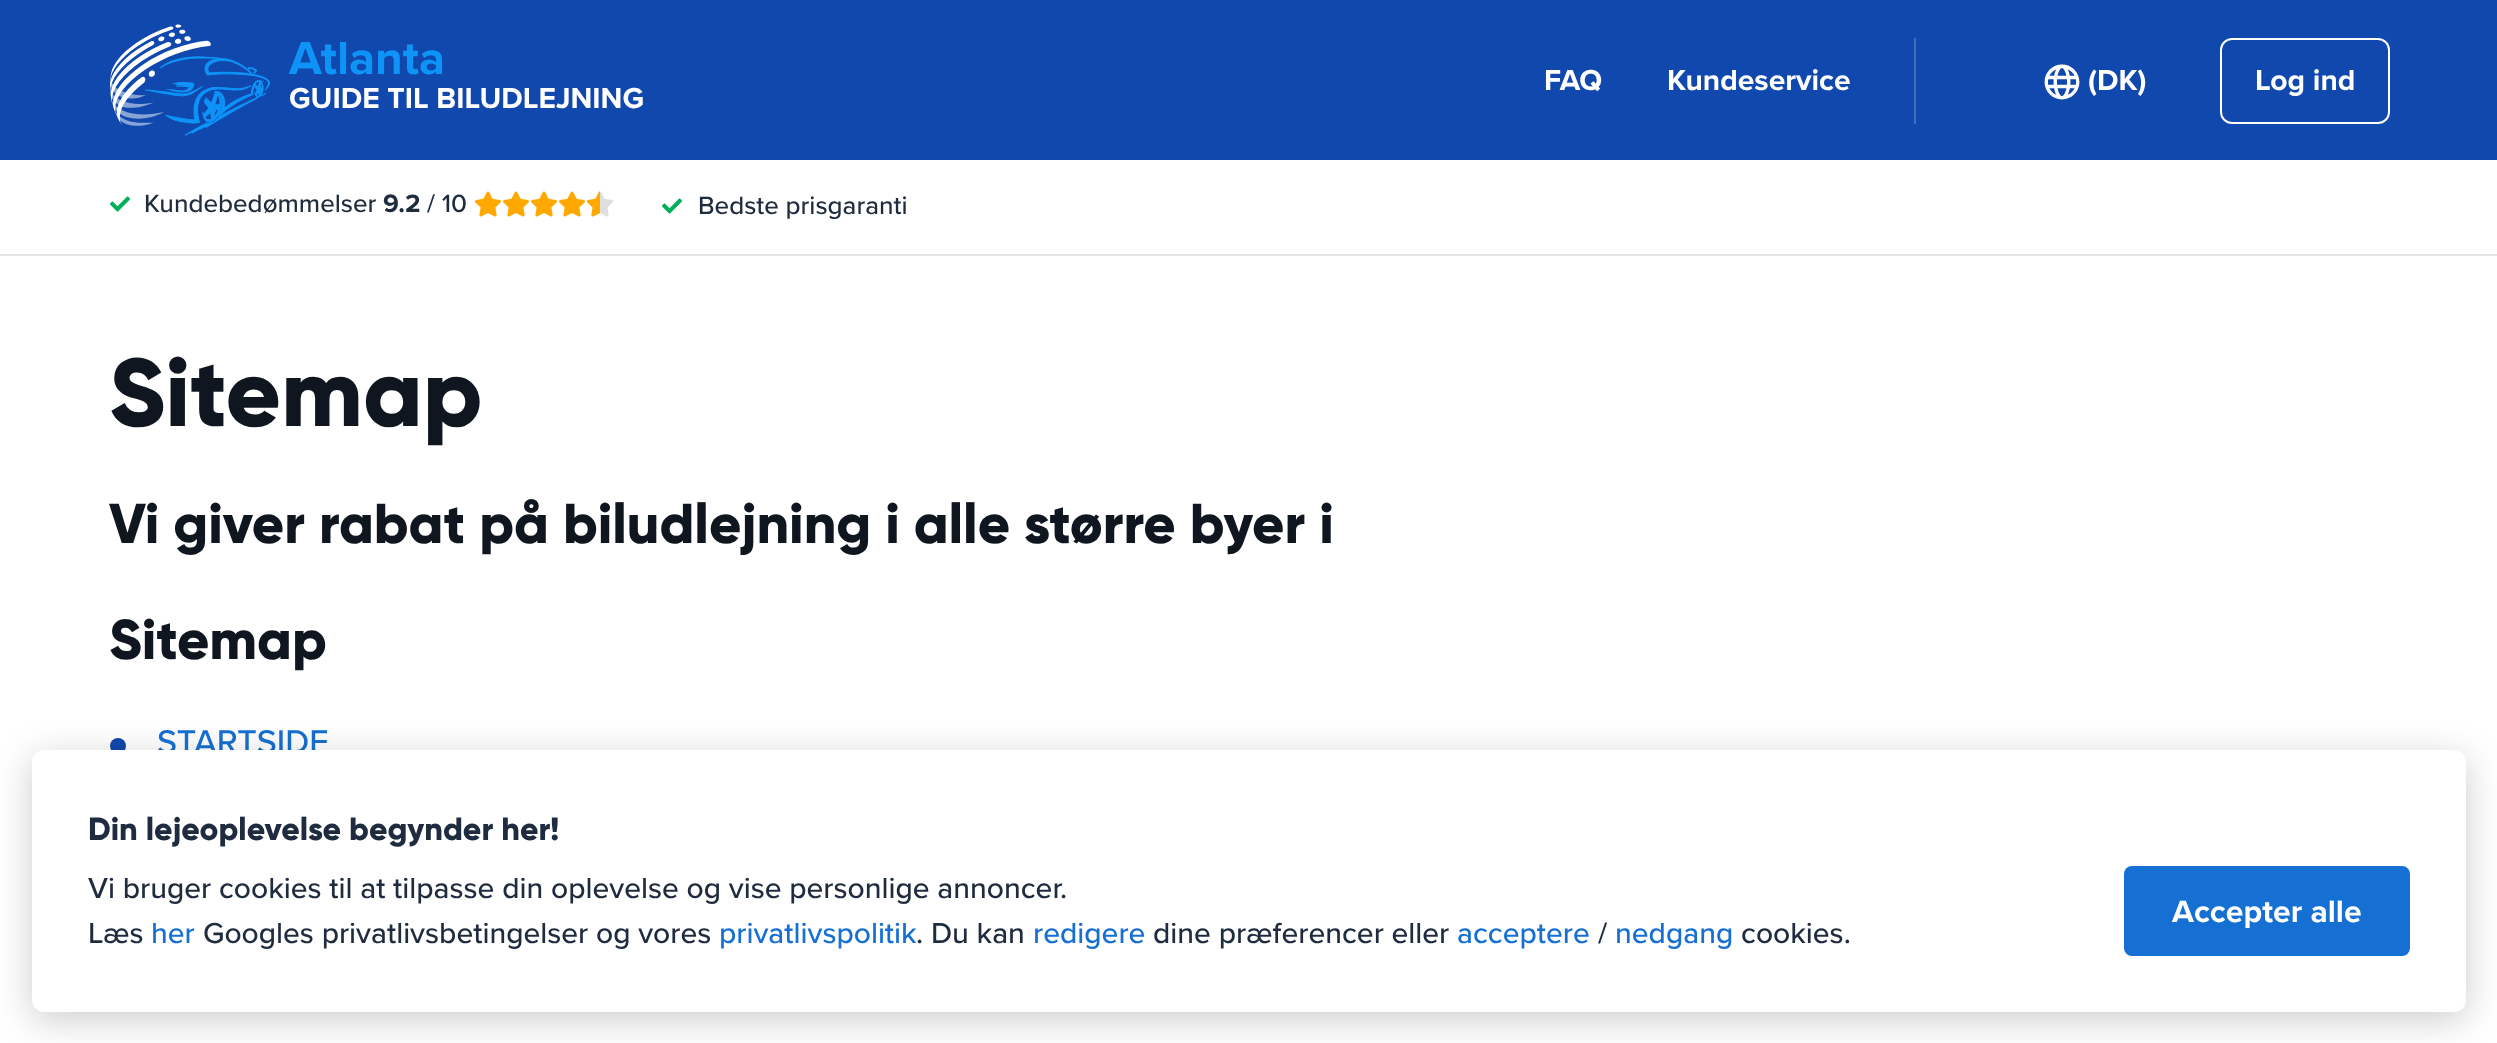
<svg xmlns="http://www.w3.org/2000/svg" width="2497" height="1043">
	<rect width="100%" height="100%" fill="#FFFFFF" />
	<rect x="0" y="0" width="2497" height="160" fill="#1148AD" />
	<image x="110" y="24" width="160" height="112" href="assets/img1.png" />
	<text x="289" y="74" font-family="Proxima Nova" font-size="48" font-weight="700" fill="#0E93F7">Atlanta</text>
	<g font-family="Proxima Nova" font-size="30" font-weight="700" fill="#FFFFFF">
		<text x="289" y="108">GUIDE TIL BILUDLEJNING</text>
		<text x="1544" y="90">FAQ</text>
		<text x="1667" y="90">Kundeservice</text>
	</g>
	<rect x="1914" y="38" width="2" height="86" fill="#416DBD" />
	<image x="2044" y="64" width="36" height="36" href="assets/img2.png" />
	<text x="2088" y="90" font-family="Proxima Nova" font-size="30" font-weight="700" fill="#FFFFFF">(DK)</text>
	<rect x="2221" y="39" width="168" height="84" rx="11" fill="none" stroke="#FFFFFF" stroke-width="2" />
	<text x="2255" y="90" font-family="Proxima Nova" font-size="30" font-weight="700" fill="#FFFFFF">Log ind</text>
	<rect x="0" y="254" width="2497" height="2" fill="#E3E6E8" />
	<image x="110" y="196" width="20" height="16" href="assets/img3.png" />
	<text x="144" y="212" font-family="Proxima Nova" font-size="26" font-weight="500" fill="#1F2B3E">Kundebedømmelser</text>
	<text x="383" y="212" font-family="Proxima Nova" font-size="26" font-weight="700" fill="#1F2B3E">9.2</text>
	<text x="427" y="212" font-family="Proxima Nova" font-size="26" font-weight="500" fill="#1F2B3E">/ 10</text>
	<image x="475" y="191" width="26" height="26" href="assets/img4.png" />
	<image x="503" y="191" width="26" height="26" href="assets/img5.png" />
	<image x="531" y="191" width="26" height="26" href="assets/img4.png" />
	<image x="559" y="191" width="26" height="26" href="assets/img4.png" />
	<image x="587" y="191" width="26" height="26" href="assets/img6.png" />
	<image x="587" y="191" width="13" height="26" href="assets/img7.png" />
	<image x="662" y="198" width="20" height="16" href="assets/img3.png" />
	<text x="698" y="214" font-family="Proxima Nova" font-size="26" font-weight="500" fill="#1F2B3E">Bedste prisgaranti</text>
	<text x="109" y="426" font-family="Gilroy" font-size="96" font-weight="800" fill="#10161F">Sitemap</text>
	<g font-family="Gilroy" font-size="56" font-weight="800" fill="#10161F">
		<text x="109" y="543">Vi giver rabat på biludlejning i alle større byer i</text>
		<text x="109" y="659">Sitemap</text>
	</g>
	<circle cx="118" cy="746" r="8" fill="#1148AD" />
	<text x="157" y="753" font-family="Proxima Nova" font-size="34" font-weight="500" fill="#1670D3">STARTSIDE</text>
	<rect x="32" y="758" width="2434" height="262" rx="12" fill="#000000" fill-opacity="0.2" filter="blur(18px)" />
	<rect x="32" y="750" width="2434" height="262" rx="12" fill="#FFFFFF" />
	<text x="88" y="840" font-family="Gilroy" font-size="32" font-weight="800" fill="#1F2B3E">Din lejeoplevelse begynder her!</text>
	<g font-family="Proxima Nova" font-size="30" font-weight="500" fill="#1F2B3E">
		<text x="88" y="898">Vi bruger cookies til at tilpasse din oplevelse og vise personlige annoncer.</text>
		<text x="88" y="943">Læs</text>
	</g>
	<text x="151" y="943" font-family="Proxima Nova" font-size="30" font-weight="500" fill="#1670D3">her</text>
	<text x="203" y="943" font-family="Proxima Nova" font-size="30" font-weight="500" fill="#1F2B3E">Googles privatlivsbetingelser og vores</text>
	<text x="719" y="943" font-family="Proxima Nova" font-size="30" font-weight="500" fill="#1670D3">privatlivspolitik</text>
	<text x="916" y="943" font-family="Proxima Nova" font-size="30" font-weight="500" fill="#1F2B3E">. Du kan</text>
	<text x="1033" y="943" font-family="Proxima Nova" font-size="30" font-weight="500" fill="#1670D3">redigere</text>
	<text x="1153" y="943" font-family="Proxima Nova" font-size="30" font-weight="500" fill="#1F2B3E">dine præferencer eller</text>
	<text x="1457" y="943" font-family="Proxima Nova" font-size="30" font-weight="500" fill="#1670D3">acceptere</text>
	<text x="1598" y="943" font-family="Proxima Nova" font-size="30" font-weight="500" fill="#1F2B3E">/</text>
	<text x="1615" y="943" font-family="Proxima Nova" font-size="30" font-weight="500" fill="#1670D3">nedgang</text>
	<text x="1741" y="943" font-family="Proxima Nova" font-size="30" font-weight="500" fill="#1F2B3E">cookies.</text>
	<rect x="2124" y="866" width="286" height="90" rx="8" fill="#1670D3" />
	<text x="2172" y="922" font-family="Proxima Nova" font-size="32" font-weight="700" fill="#FFFFFF">Accepter alle</text>
</svg>
